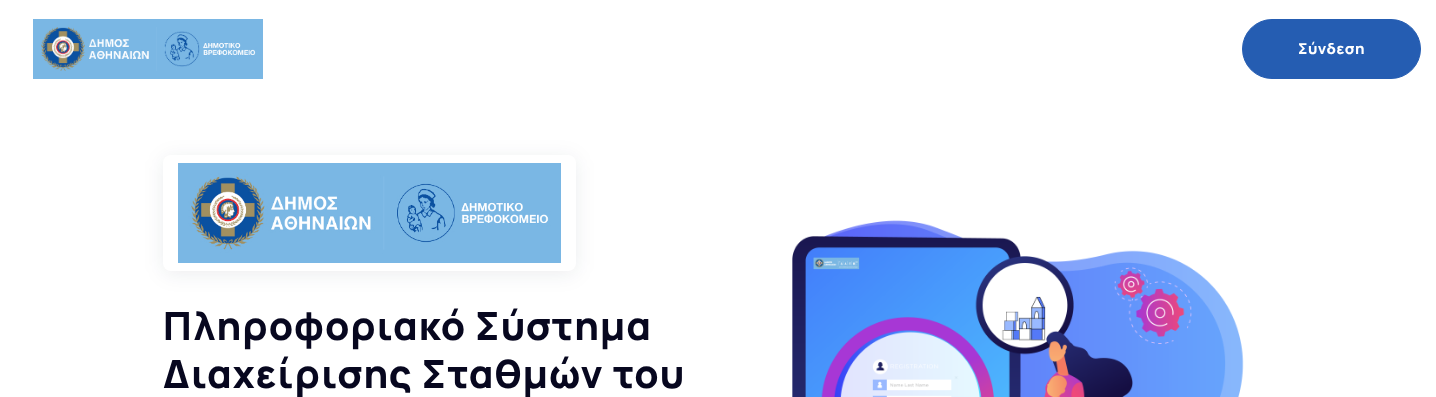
<svg xmlns="http://www.w3.org/2000/svg" width="1436" height="397">
	<rect width="100%" height="100%" fill="#FFFFFF" />
	<image x="33" y="19" width="230" height="60" href="assets/img1.png" />
	<rect x="1242.5" y="19.5" width="178" height="59" rx="29.5" fill="#255DB2" stroke="#255DB2" />
	<text x="1298" y="54" font-family="Manrope" font-size="15" font-weight="800" letter-spacing="0.5" fill="#FFFFFF">Σύνδεση</text>
	<rect x="163" y="158" width="413" height="116" rx="8" fill="#10182F" fill-opacity="0.08" filter="blur(10px)" />
	<rect x="163" y="155" width="413" height="116" rx="8" fill="#FFFFFF" />
	<image x="178" y="163" width="383" height="100" href="assets/img2.png" />
	<g font-family="Manrope" font-size="39" font-weight="800" letter-spacing="1" fill="#07071F">
		<text x="163" y="340">Πληροφοριακό Σύστημα</text>
		<text x="163" y="388">Διαχείρισης Σταθμών του</text>
	</g>
	<image x="792" y="220" width="452" height="177" href="assets/img3.png" />
</svg>
